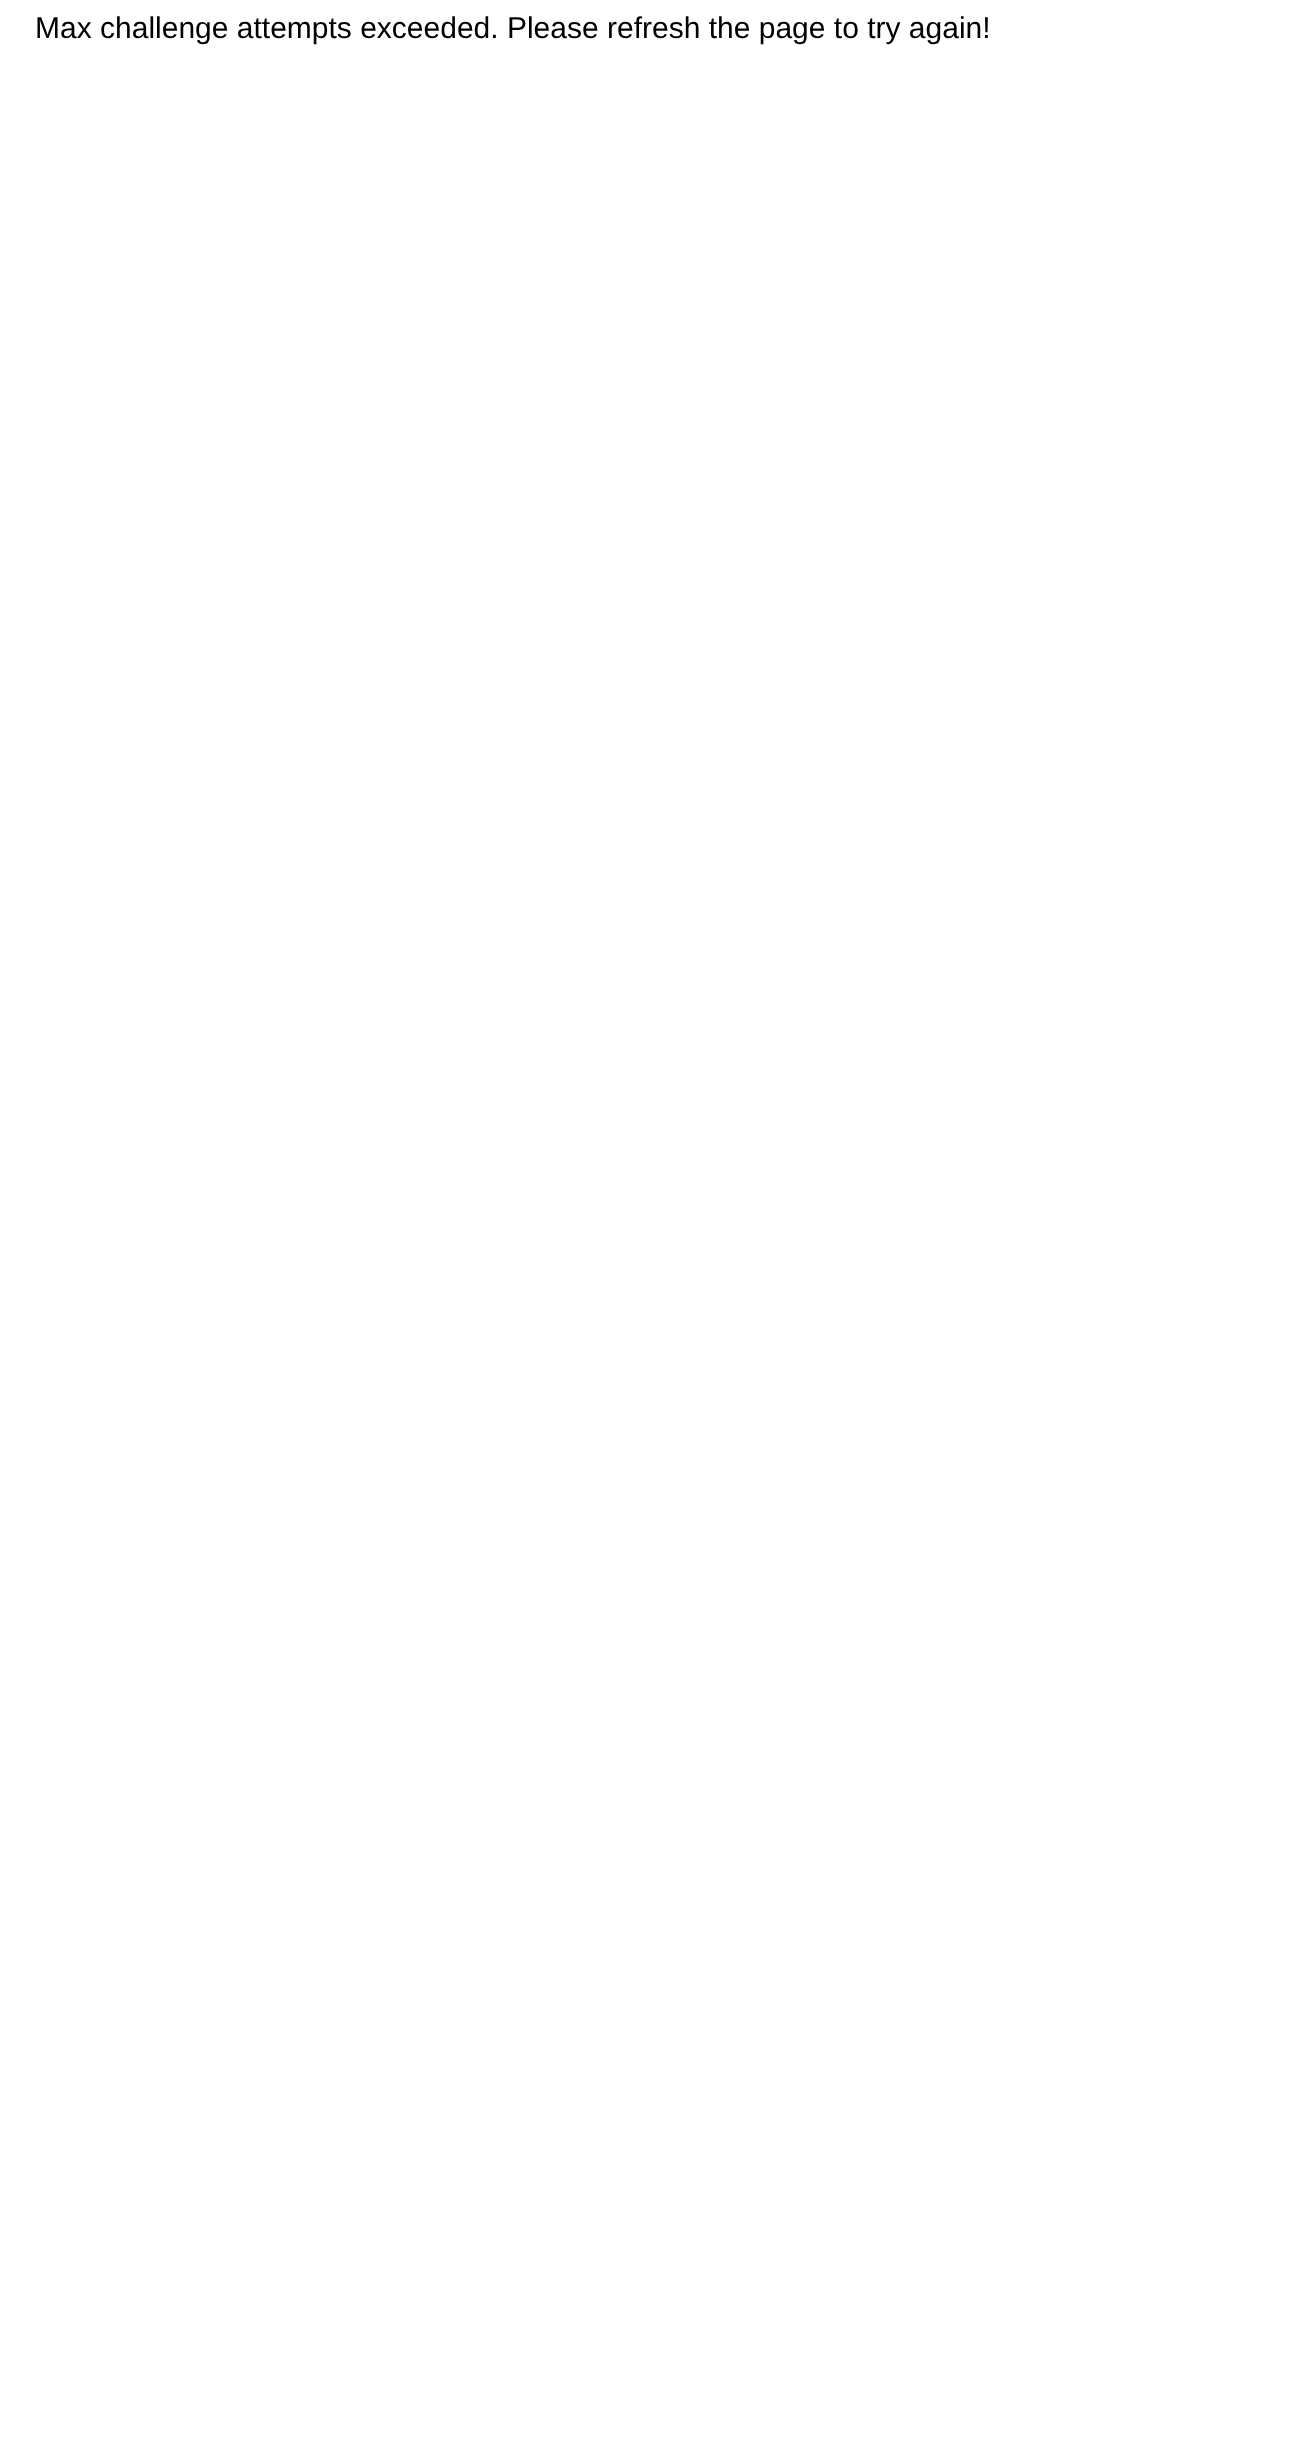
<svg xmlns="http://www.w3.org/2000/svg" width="1313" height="2464">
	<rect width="100%" height="100%" fill="#FFFFFF" />
	<text x="35" y="38" font-family="Liberation Sans" font-size="30" fill="#000000">Max challenge attempts exceeded. Please refresh the page to try again!</text>
</svg>
